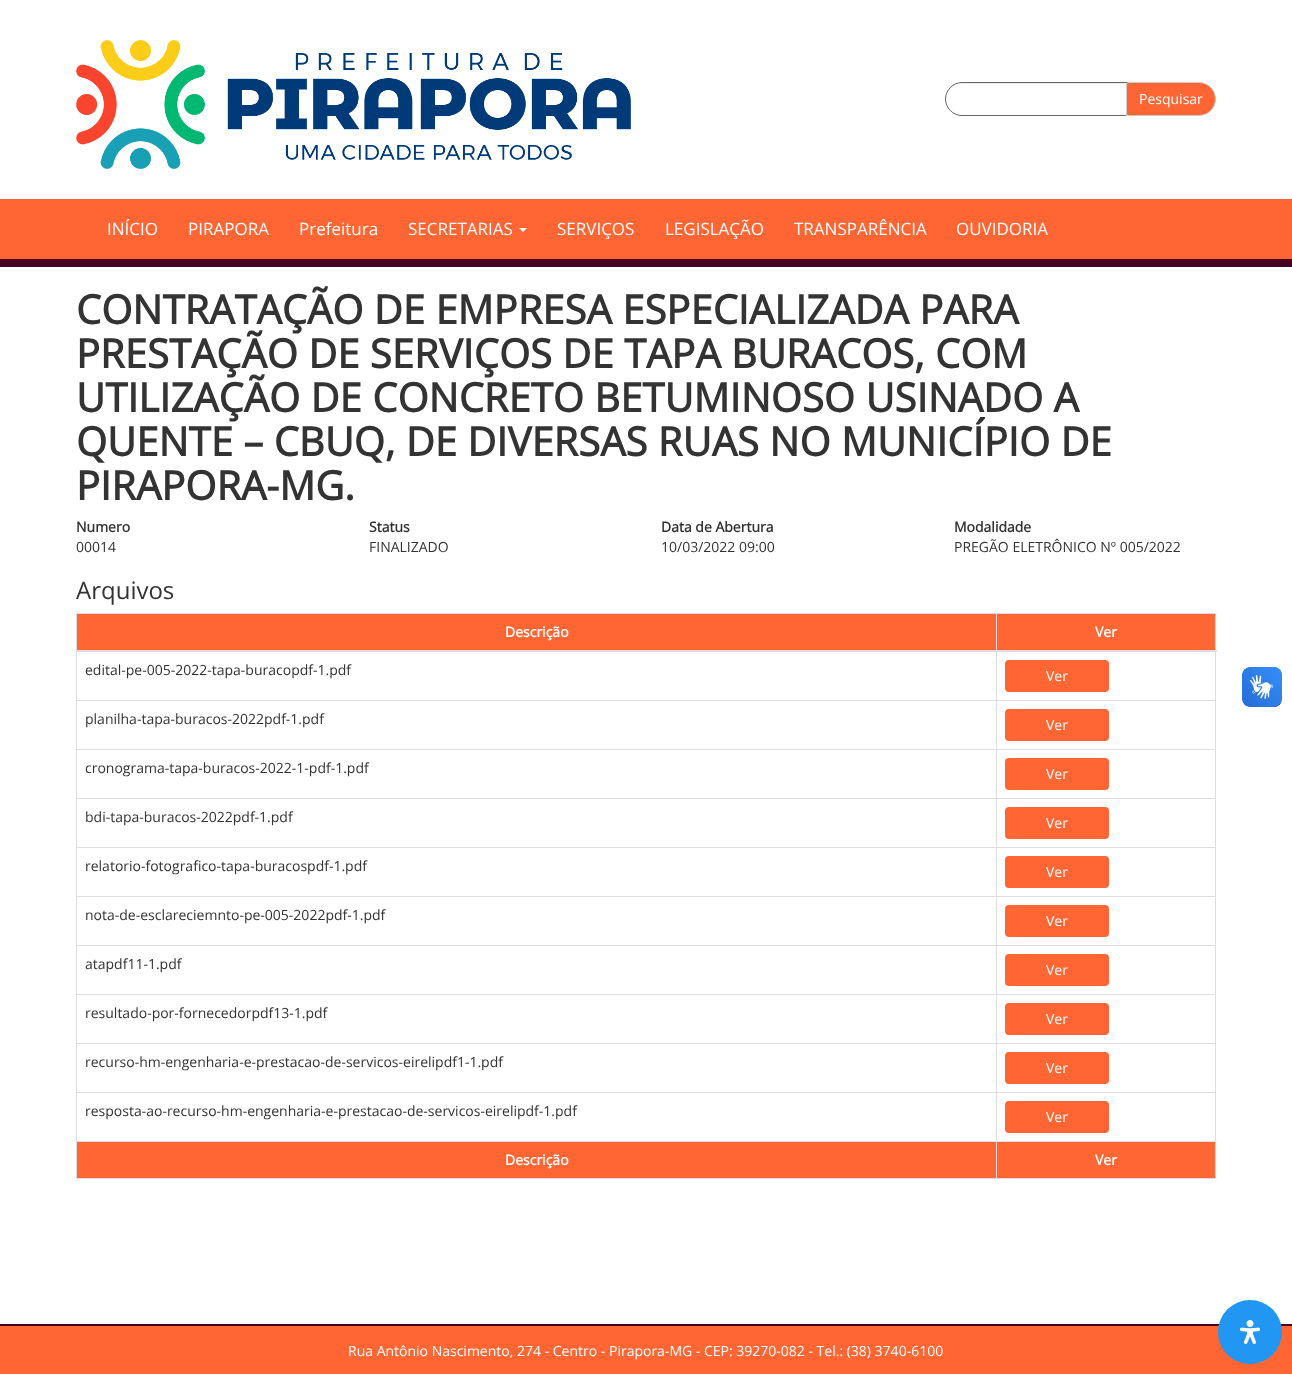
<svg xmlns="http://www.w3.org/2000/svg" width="1292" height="1374">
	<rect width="100%" height="100%" fill="#FFFFFF" />
	<image x="76" y="40" width="555" height="129" href="assets/img1.png" />
	<path d="M962 84H1127V83H990C978 83 945 77 946 99C946 91 953 84 962 84Z" fill="#ECECEC" />
	<path d="M962 82.5H1127.5V113.5C1127.5 114.5 1126.5 115.5 1125.5 115.5H962C953 115.5 945.5 108 945.5 99C945.5 90 953 82.5 962 82.5Z" fill="none" stroke="#666666" />
	<path d="M1128.5 82.5H1199C1208 82.5 1215.5 90 1215.5 99C1215.5 108 1208 115.5 1199 115.5H1128.5C1127.5 115.5 1126.5 114.5 1126.5 113.5V84.5C1126.5 83.5 1127.5 82.5 1128.5 82.5Z" fill="#FF6634" stroke="#CCCCCC" />
	<text x="1139" y="104" font-family="Open Sans" font-size="14" fill="#FFFFFF">Pesquisar</text>
	<rect x="0" y="199" width="1292" height="60" fill="#FF6634" />
	<rect x="0" y="259" width="1292" height="8" fill="#470124" />
	<g font-family="Open Sans" font-size="17" fill="#FFFFFF">
		<text x="107" y="235">INÍCIO</text>
		<text x="188" y="235">PIRAPORA</text>
		<text x="299" y="235">Prefeitura</text>
		<text x="408" y="235">SECRETARIAS</text>
	</g>
	<path d="M519 228H527L523 232Z" fill="#FFFFFF" />
	<g font-family="Open Sans" font-size="17" fill="#FFFFFF">
		<text x="557" y="235">SERVIÇOS</text>
		<text x="665" y="235">LEGISLAÇÃO</text>
		<text x="794" y="235">TRANSPARÊNCIA</text>
		<text x="956" y="235">OUVIDORIA</text>
	</g>
	<g font-family="Open Sans" font-size="40" font-weight="700" fill="#333333">
		<text x="76" y="324">CONTRATAÇÃO DE EMPRESA ESPECIALIZADA PARA</text>
		<text x="76" y="368">PRESTAÇÃO DE SERVIÇOS DE TAPA BURACOS, COM</text>
		<text x="76" y="412">UTILIZAÇÃO DE CONCRETO BETUMINOSO USINADO A</text>
		<text x="76" y="456">QUENTE – CBUQ, DE DIVERSAS RUAS NO MUNICÍPIO DE</text>
		<text x="76" y="500">PIRAPORA-MG.</text>
	</g>
	<text x="76" y="532" font-family="Open Sans" font-size="14" font-weight="700" fill="#333333">Numero</text>
	<text x="76" y="552" font-family="Open Sans" font-size="14" fill="#333333">00014</text>
	<text x="369" y="532" font-family="Open Sans" font-size="14" font-weight="700" fill="#333333">Status</text>
	<text x="369" y="552" font-family="Open Sans" font-size="14" fill="#333333">FINALIZADO</text>
	<text x="661" y="532" font-family="Open Sans" font-size="14" font-weight="700" fill="#333333">Data de Abertura</text>
	<text x="661" y="552" font-family="Open Sans" font-size="14" fill="#333333">10/03/2022 09:00</text>
	<text x="954" y="532" font-family="Open Sans" font-size="14" font-weight="700" fill="#333333">Modalidade</text>
	<text x="954" y="552" font-family="Open Sans" font-size="14" fill="#333333">PREGÃO ELETRÔNICO Nº 005/2022</text>
	<text x="76" y="599" font-family="Open Sans" font-size="24" fill="#333333">Arquivos</text>
	<rect x="76" y="613" width="1140" height="1" fill="#DDDDDD" />
	<rect x="1215" y="613" width="1" height="566" fill="#DDDDDD" />
	<rect x="76" y="1178" width="1140" height="1" fill="#DDDDDD" />
	<rect x="76" y="613" width="1" height="566" fill="#DDDDDD" />
	<rect x="77" y="614" width="1138" height="36" fill="#FF6634" />
	<text x="505" y="637" font-family="Open Sans" font-size="14" font-weight="700" fill="#FFFFFF">Descrição</text>
	<rect x="996" y="700" width="220" height="1" fill="#DDDDDD" />
	<rect x="996" y="749" width="220" height="1" fill="#DDDDDD" />
	<rect x="996" y="798" width="220" height="1" fill="#DDDDDD" />
	<rect x="996" y="847" width="220" height="1" fill="#DDDDDD" />
	<rect x="996" y="896" width="220" height="1" fill="#DDDDDD" />
	<rect x="996" y="945" width="220" height="1" fill="#DDDDDD" />
	<rect x="996" y="994" width="220" height="1" fill="#DDDDDD" />
	<rect x="996" y="1043" width="220" height="1" fill="#DDDDDD" />
	<rect x="996" y="1092" width="220" height="1" fill="#DDDDDD" />
	<rect x="996" y="1141" width="220" height="1" fill="#DDDDDD" />
	<rect x="77" y="1142" width="1138" height="36" fill="#FF6634" />
	<rect x="996" y="1141" width="1" height="38" fill="#DDDDDD" />
	<rect x="76" y="1141" width="921" height="1" fill="#DDDDDD" />
	<rect x="996" y="1092" width="1" height="50" fill="#DDDDDD" />
	<rect x="76" y="1092" width="921" height="1" fill="#DDDDDD" />
	<rect x="996" y="1043" width="1" height="50" fill="#DDDDDD" />
	<rect x="76" y="1043" width="921" height="1" fill="#DDDDDD" />
	<rect x="996" y="994" width="1" height="50" fill="#DDDDDD" />
	<rect x="76" y="994" width="921" height="1" fill="#DDDDDD" />
	<rect x="996" y="945" width="1" height="50" fill="#DDDDDD" />
	<rect x="76" y="945" width="921" height="1" fill="#DDDDDD" />
	<rect x="996" y="896" width="1" height="50" fill="#DDDDDD" />
	<rect x="76" y="896" width="921" height="1" fill="#DDDDDD" />
	<rect x="996" y="847" width="1" height="50" fill="#DDDDDD" />
	<rect x="76" y="847" width="921" height="1" fill="#DDDDDD" />
	<rect x="996" y="798" width="1" height="50" fill="#DDDDDD" />
	<rect x="76" y="798" width="921" height="1" fill="#DDDDDD" />
	<rect x="996" y="749" width="1" height="50" fill="#DDDDDD" />
	<rect x="76" y="749" width="921" height="1" fill="#DDDDDD" />
	<rect x="996" y="700" width="1" height="50" fill="#DDDDDD" />
	<rect x="76" y="700" width="921" height="1" fill="#DDDDDD" />
	<rect x="996" y="613" width="1" height="88" fill="#DDDDDD" />
	<rect x="76" y="650" width="1141" height="2" fill="#DDDDDD" />
	<text x="1095" y="637" font-family="Open Sans" font-size="14" font-weight="700" fill="#FFFFFF">Ver</text>
	<text x="85" y="675" font-family="Open Sans" font-size="14" fill="#333333">edital-pe-005-2022-tapa-buracopdf-1.pdf</text>
	<rect x="1005" y="660" width="104" height="32" rx="4" fill="#FF6634" />
	<text x="1046" y="681" font-family="Open Sans" font-size="14" fill="#FFFFFF">Ver</text>
	<text x="85" y="724" font-family="Open Sans" font-size="14" fill="#333333">planilha-tapa-buracos-2022pdf-1.pdf</text>
	<rect x="1005" y="709" width="104" height="32" rx="4" fill="#FF6634" />
	<text x="1046" y="730" font-family="Open Sans" font-size="14" fill="#FFFFFF">Ver</text>
	<text x="85" y="773" font-family="Open Sans" font-size="14" fill="#333333">cronograma-tapa-buracos-2022-1-pdf-1.pdf</text>
	<rect x="1005" y="758" width="104" height="32" rx="4" fill="#FF6634" />
	<text x="1046" y="779" font-family="Open Sans" font-size="14" fill="#FFFFFF">Ver</text>
	<text x="85" y="822" font-family="Open Sans" font-size="14" fill="#333333">bdi-tapa-buracos-2022pdf-1.pdf</text>
	<rect x="1005" y="807" width="104" height="32" rx="4" fill="#FF6634" />
	<text x="1046" y="828" font-family="Open Sans" font-size="14" fill="#FFFFFF">Ver</text>
	<text x="85" y="871" font-family="Open Sans" font-size="14" fill="#333333">relatorio-fotografico-tapa-buracospdf-1.pdf</text>
	<rect x="1005" y="856" width="104" height="32" rx="4" fill="#FF6634" />
	<text x="1046" y="877" font-family="Open Sans" font-size="14" fill="#FFFFFF">Ver</text>
	<text x="85" y="920" font-family="Open Sans" font-size="14" fill="#333333">nota-de-esclareciemnto-pe-005-2022pdf-1.pdf</text>
	<rect x="1005" y="905" width="104" height="32" rx="4" fill="#FF6634" />
	<text x="1046" y="926" font-family="Open Sans" font-size="14" fill="#FFFFFF">Ver</text>
	<text x="85" y="969" font-family="Open Sans" font-size="14" fill="#333333">atapdf11-1.pdf</text>
	<rect x="1005" y="954" width="104" height="32" rx="4" fill="#FF6634" />
	<text x="1046" y="975" font-family="Open Sans" font-size="14" fill="#FFFFFF">Ver</text>
	<text x="85" y="1018" font-family="Open Sans" font-size="14" fill="#333333">resultado-por-fornecedorpdf13-1.pdf</text>
	<rect x="1005" y="1003" width="104" height="32" rx="4" fill="#FF6634" />
	<text x="1046" y="1024" font-family="Open Sans" font-size="14" fill="#FFFFFF">Ver</text>
	<text x="85" y="1067" font-family="Open Sans" font-size="14" fill="#333333">recurso-hm-engenharia-e-prestacao-de-servicos-eirelipdf1-1.pdf</text>
	<rect x="1005" y="1052" width="104" height="32" rx="4" fill="#FF6634" />
	<text x="1046" y="1073" font-family="Open Sans" font-size="14" fill="#FFFFFF">Ver</text>
	<text x="85" y="1116" font-family="Open Sans" font-size="14" fill="#333333">resposta-ao-recurso-hm-engenharia-e-prestacao-de-servicos-eirelipdf-1.pdf</text>
	<rect x="1005" y="1101" width="104" height="32" rx="4" fill="#FF6634" />
	<text x="1046" y="1122" font-family="Open Sans" font-size="14" fill="#FFFFFF">Ver</text>
	<g font-family="Open Sans" font-size="14" font-weight="700" fill="#FFFFFF">
		<text x="505" y="1165">Descrição</text>
		<text x="1095" y="1165">Ver</text>
	</g>
	<image x="1242" y="667" width="40" height="40" href="assets/img2.png" />
	<image x="1242" y="667" width="40" height="40" href="assets/img3.png" />
	<rect x="0" y="1326" width="1292" height="48" fill="#FF6634" />
	<rect x="0" y="1324" width="1292" height="2" fill="#470124" />
	<text x="348" y="1356" font-family="Open Sans" font-size="14" fill="#FFFFFF">Rua Antônio Nascimento, 274 - Centro - Pirapora-MG - CEP: 39270-082 - Tel.: (38) 3740-6100</text>
	<circle cx="1250" cy="1332" r="32" fill="#2196F3" />
	<image x="1240" y="1320" width="20" height="24" href="assets/img4.png" />
</svg>
